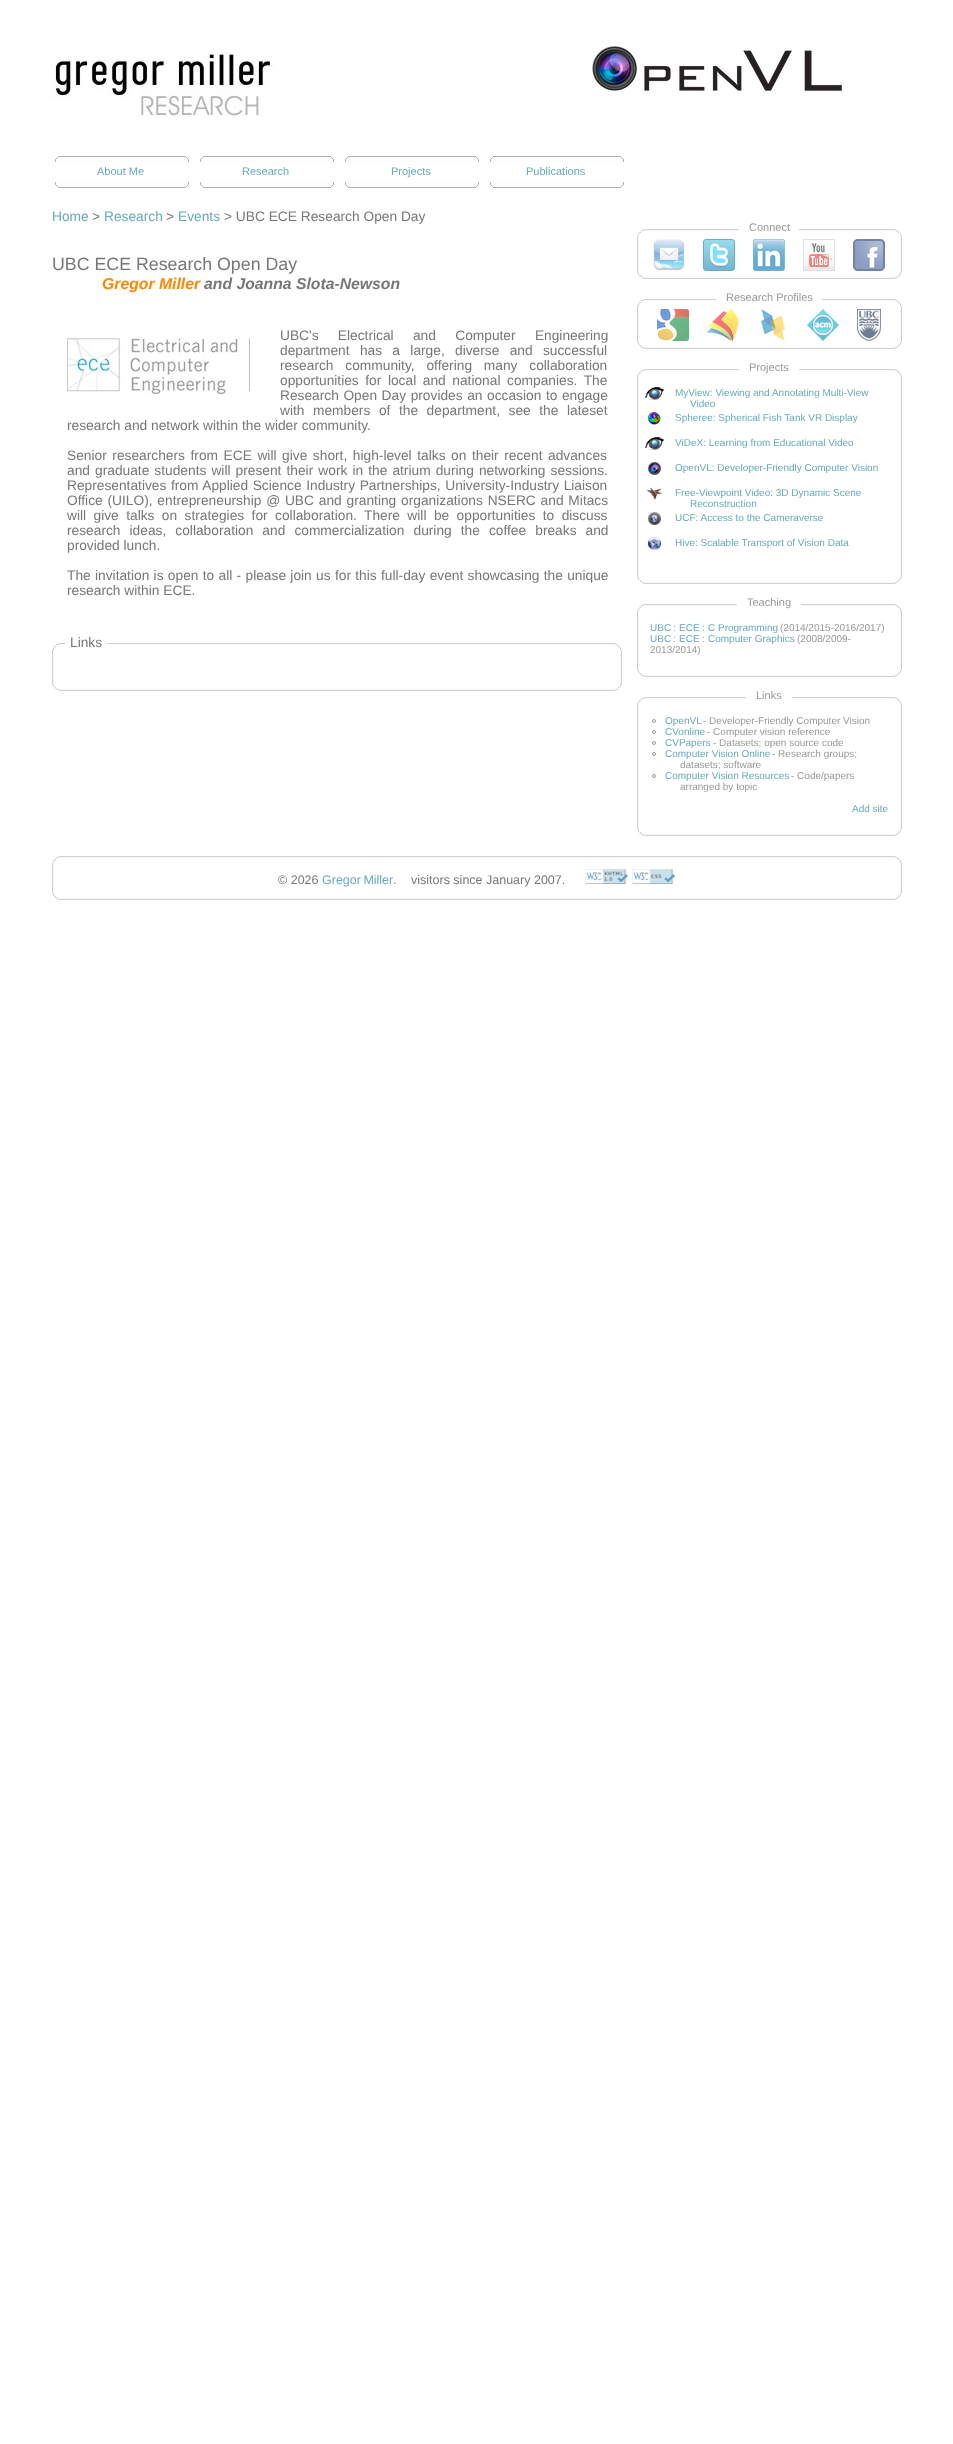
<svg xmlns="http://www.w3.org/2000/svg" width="953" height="2444">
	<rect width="100%" height="100%" fill="#FFFFFF" />
	<image x="51" y="51" width="224" height="66" href="assets/img1.png" />
	<image x="592" y="46" width="250" height="45" href="assets/img2.png" />
	<image x="55" y="156" width="134" height="6" href="assets/img3.png" />
	<text x="97" y="175" font-family="Liberation Sans" font-size="11" fill="#66AABB">About Me</text>
	<image x="55" y="182" width="134" height="6" href="assets/img4.png" />
	<image x="200" y="156" width="134" height="6" href="assets/img3.png" />
	<text x="242" y="175" font-family="Liberation Sans" font-size="11" fill="#66AABB">Research</text>
	<image x="200" y="182" width="134" height="6" href="assets/img4.png" />
	<image x="345" y="156" width="134" height="6" href="assets/img3.png" />
	<text x="391" y="175" font-family="Liberation Sans" font-size="11" fill="#66AABB">Projects</text>
	<image x="345" y="182" width="134" height="6" href="assets/img4.png" />
	<image x="490" y="156" width="134" height="6" href="assets/img3.png" />
	<text x="526" y="175" font-family="Liberation Sans" font-size="11" fill="#66AABB">Publications</text>
	<image x="490" y="182" width="134" height="6" href="assets/img4.png" />
	<text x="52" y="221" font-family="Liberation Sans" font-size="13.75" fill="#66AABB">Home</text>
	<text x="92" y="221" font-family="Liberation Sans" font-size="13.75" fill="#777777">&gt;</text>
	<text x="104" y="221" font-family="Liberation Sans" font-size="13.75" fill="#66AABB">Research</text>
	<text x="166" y="221" font-family="Liberation Sans" font-size="13.75" fill="#777777">&gt;</text>
	<text x="178" y="221" font-family="Liberation Sans" font-size="13.75" fill="#66AABB">Events</text>
	<text x="224" y="221" font-family="Liberation Sans" font-size="13.75" fill="#777777">&gt; UBC ECE Research Open Day</text>
	<text x="52" y="270" font-family="Liberation Sans" font-size="17.8" fill="#777777">UBC ECE Research Open Day</text>
	<text x="102" y="289" font-family="Liberation Sans" font-size="15.75" font-weight="700" font-style="italic" fill="#FF8800">Gregor Miller</text>
	<text x="204" y="289" font-family="Liberation Sans" font-size="15.75" font-weight="700" font-style="italic" fill="#777777">and Joanna Slota-Newson</text>
	<text x="280" y="340" word-spacing="15.5" font-family="Liberation Sans" font-size="13.75" fill="#777777">UBC's Electrical and Computer Engineering</text>
	<image x="67" y="338" width="183" height="56" href="assets/img5.png" />
	<g font-family="Liberation Sans" font-size="13.75" fill="#777777">
		<text x="280" y="355" word-spacing="6.5">department has a large, diverse and successful</text>
		<text x="280" y="370" word-spacing="8">research community, offering many collaboration</text>
		<text x="280" y="385" word-spacing="2.75">opportunities for local and national companies. The</text>
		<text x="280" y="400" word-spacing="0.75">Research Open Day provides an occasion to engage</text>
		<text x="280" y="415" word-spacing="4.75">with members of the department, see the lateset</text>
		<text x="67" y="430">research and network within the wider community.</text>
		<text x="67" y="460" word-spacing="1.75">Senior researchers from ECE will give short, high-level talks on their recent advances</text>
		<text x="67" y="475" word-spacing="1.25">and graduate students will present their work in the atrium during networking sessions.</text>
		<text x="67" y="490" word-spacing="0.75">Representatives from Applied Science Industry Partnerships, University-Industry Liaison</text>
		<text x="67" y="505" word-spacing="1">Office (UILO), entrepreneurship @ UBC and granting organizations NSERC and Mitacs</text>
		<text x="67" y="520" word-spacing="3.6">will give talks on strategies for collaboration. There will be opportunities to discuss</text>
		<text x="67" y="535" word-spacing="5.25">research ideas, collaboration and commercialization during the coffee breaks and</text>
		<text x="67" y="550">provided lunch.</text>
		<text x="67" y="580" word-spacing="0.5">The invitation is open to all - please join us for this full-day event showcasing the unique</text>
		<text x="67" y="595">research within ECE.</text>
	</g>
	<image x="60" y="643" width="554" height="2" href="assets/img9.png" />
	<rect x="65" y="643" width="42" height="2" fill="#FFFFFF" />
	<text x="70" y="647" font-family="Liberation Sans" font-size="13.75" fill="#777777">Links</text>
	<image x="52" y="651" width="2" height="32" href="assets/img6.png" />
	<image x="620" y="651" width="2" height="32" href="assets/img7.png" />
	<image x="52" y="643" width="8" height="8" href="assets/img8.png" />
	<image x="614" y="643" width="8" height="8" href="assets/img10.png" />
	<image x="52" y="683" width="8" height="8" href="assets/img11.png" />
	<image x="60" y="689" width="554" height="2" href="assets/img12.png" />
	<image x="614" y="683" width="8" height="8" href="assets/img13.png" />
	<image x="645" y="229" width="249" height="2" href="assets/img21.png" />
	<rect x="739" y="229" width="60" height="2" fill="#FFFFFF" />
	<text x="749" y="231" font-family="Liberation Sans" font-size="11" fill="#999999">Connect</text>
	<image x="653" y="239" width="32" height="32" href="assets/img14.png" />
	<image x="703" y="239" width="32" height="32" href="assets/img15.png" />
	<image x="753" y="239" width="32" height="32" href="assets/img16.png" />
	<image x="803" y="239" width="32" height="32" href="assets/img17.png" />
	<image x="853" y="239" width="32" height="32" href="assets/img18.png" />
	<image x="637" y="237" width="2" height="34" href="assets/img19.png" />
	<image x="900" y="237" width="2" height="34" href="assets/img20.png" />
	<image x="637" y="229" width="8" height="8" href="assets/img8.png" />
	<image x="894" y="229" width="8" height="8" href="assets/img10.png" />
	<image x="637" y="271" width="8" height="8" href="assets/img11.png" />
	<image x="645" y="277" width="249" height="2" href="assets/img22.png" />
	<image x="894" y="271" width="8" height="8" href="assets/img13.png" />
	<image x="645" y="299" width="249" height="2" href="assets/img21.png" />
	<rect x="716" y="299" width="106" height="2" fill="#FFFFFF" />
	<text x="726" y="301" font-family="Liberation Sans" font-size="11" fill="#999999">Research Profiles</text>
	<image x="657" y="309" width="32" height="32" href="assets/img23.png" />
	<image x="707" y="309" width="32" height="32" href="assets/img24.png" />
	<image x="761" y="309" width="25" height="32" href="assets/img25.png" />
	<image x="807" y="309" width="32" height="32" href="assets/img26.png" />
	<image x="857" y="309" width="24" height="32" href="assets/img27.png" />
	<image x="637" y="307" width="2" height="34" href="assets/img19.png" />
	<image x="900" y="307" width="2" height="34" href="assets/img20.png" />
	<image x="637" y="299" width="8" height="8" href="assets/img8.png" />
	<image x="894" y="299" width="8" height="8" href="assets/img10.png" />
	<image x="637" y="341" width="8" height="8" href="assets/img11.png" />
	<image x="645" y="347" width="249" height="2" href="assets/img22.png" />
	<image x="894" y="341" width="8" height="8" href="assets/img13.png" />
	<image x="637" y="377" width="2" height="199" href="assets/img28.png" />
	<image x="645" y="369" width="249" height="2" href="assets/img21.png" />
	<rect x="739" y="369" width="60" height="2" fill="#FFFFFF" />
	<text x="749" y="371" font-family="Liberation Sans" font-size="11" fill="#999999">Projects</text>
	<image x="645" y="387" width="19" height="13" href="assets/img29.png" />
	<g font-family="Liberation Sans" font-size="10" fill="#66AABB">
		<text x="675" y="396">MyView: Viewing and Annotating Multi-View</text>
		<text x="690" y="407">Video</text>
	</g>
	<image x="648" y="412" width="13" height="13" href="assets/img30.png" />
	<text x="675" y="421" font-family="Liberation Sans" font-size="10" fill="#66AABB">Spheree: Spherical Fish Tank VR Display</text>
	<image x="645" y="437" width="19" height="13" href="assets/img29.png" />
	<text x="675" y="446" font-family="Liberation Sans" font-size="10" fill="#66AABB">ViDeX: Learning from Educational Video</text>
	<image x="648" y="462" width="13" height="13" href="assets/img31.png" />
	<text x="675" y="471" font-family="Liberation Sans" font-size="10" fill="#66AABB">OpenVL: Developer-Friendly Computer Vision</text>
	<image x="646" y="487" width="16" height="13" href="assets/img32.png" />
	<g font-family="Liberation Sans" font-size="10" fill="#66AABB">
		<text x="675" y="496">Free-Viewpoint Video: 3D Dynamic Scene</text>
		<text x="690" y="507">Reconstruction</text>
	</g>
	<image x="648" y="512" width="13" height="13" href="assets/img33.png" />
	<text x="675" y="521" font-family="Liberation Sans" font-size="10" fill="#66AABB">UCF: Access to the Cameraverse</text>
	<image x="648" y="537" width="13" height="13" href="assets/img34.png" />
	<text x="675" y="546" font-family="Liberation Sans" font-size="10" fill="#66AABB">Hive: Scalable Transport of Vision Data</text>
	<image x="900" y="377" width="2" height="199" href="assets/img35.png" />
	<image x="637" y="369" width="8" height="8" href="assets/img8.png" />
	<image x="894" y="369" width="8" height="8" href="assets/img10.png" />
	<image x="637" y="576" width="8" height="8" href="assets/img11.png" />
	<image x="645" y="582" width="249" height="2" href="assets/img22.png" />
	<image x="894" y="576" width="8" height="8" href="assets/img13.png" />
	<image x="637" y="612" width="2" height="57" href="assets/img36.png" />
	<image x="645" y="604" width="249" height="2" href="assets/img21.png" />
	<rect x="737" y="604" width="64" height="2" fill="#FFFFFF" />
	<text x="747" y="606" font-family="Liberation Sans" font-size="11" fill="#999999">Teaching</text>
	<text x="650" y="631" font-family="Liberation Sans" font-size="10" fill="#66AABB">UBC</text>
	<text x="673" y="631" font-family="Liberation Sans" font-size="10" fill="#999999">:</text>
	<text x="679" y="631" font-family="Liberation Sans" font-size="10" fill="#66AABB">ECE</text>
	<text x="702" y="631" font-family="Liberation Sans" font-size="10" fill="#999999">:</text>
	<text x="708" y="631" font-family="Liberation Sans" font-size="10" fill="#66AABB">C Programming</text>
	<text x="780" y="631" font-family="Liberation Sans" font-size="10" fill="#999999">(2014/2015-2016/2017)</text>
	<text x="650" y="642" font-family="Liberation Sans" font-size="10" fill="#66AABB">UBC</text>
	<text x="673" y="642" font-family="Liberation Sans" font-size="10" fill="#999999">:</text>
	<text x="679" y="642" font-family="Liberation Sans" font-size="10" fill="#66AABB">ECE</text>
	<text x="702" y="642" font-family="Liberation Sans" font-size="10" fill="#999999">:</text>
	<text x="708" y="642" font-family="Liberation Sans" font-size="10" fill="#66AABB">Computer Graphics</text>
	<g font-family="Liberation Sans" font-size="10" fill="#999999">
		<text x="797" y="642">(2008/2009-</text>
		<text x="650" y="653">2013/2014)</text>
	</g>
	<image x="900" y="612" width="2" height="57" href="assets/img37.png" />
	<image x="637" y="604" width="8" height="8" href="assets/img8.png" />
	<image x="894" y="604" width="8" height="8" href="assets/img10.png" />
	<image x="637" y="669" width="8" height="8" href="assets/img11.png" />
	<image x="645" y="675" width="249" height="2" href="assets/img22.png" />
	<image x="894" y="669" width="8" height="8" href="assets/img13.png" />
	<image x="637" y="705" width="2" height="123" href="assets/img38.png" />
	<image x="645" y="697" width="249" height="2" href="assets/img21.png" />
	<rect x="746" y="697" width="46" height="2" fill="#FFFFFF" />
	<text x="756" y="699" font-family="Liberation Sans" font-size="11" fill="#999999">Links</text>
	<circle cx="654" cy="721" r="1.5" fill="none" stroke="#999999" />
	<text x="665" y="724" font-family="Liberation Sans" font-size="10" fill="#66AABB">OpenVL</text>
	<text x="703" y="724" font-family="Liberation Sans" font-size="10" fill="#999999">- Developer-Friendly Computer Vision</text>
	<circle cx="654" cy="732" r="1.5" fill="none" stroke="#999999" />
	<text x="665" y="735" font-family="Liberation Sans" font-size="10" fill="#66AABB">CVonline</text>
	<text x="707" y="735" font-family="Liberation Sans" font-size="10" fill="#999999">- Computer vision reference</text>
	<circle cx="654" cy="743" r="1.5" fill="none" stroke="#999999" />
	<text x="665" y="746" font-family="Liberation Sans" font-size="10" fill="#66AABB">CVPapers</text>
	<text x="713" y="746" font-family="Liberation Sans" font-size="10" fill="#999999">- Datasets; open source code</text>
	<circle cx="654" cy="754" r="1.5" fill="none" stroke="#999999" />
	<text x="665" y="757" font-family="Liberation Sans" font-size="10" fill="#66AABB">Computer Vision Online</text>
	<g font-family="Liberation Sans" font-size="10" fill="#999999">
		<text x="772" y="757">- Research groups;</text>
		<text x="680" y="768">datasets; software</text>
	</g>
	<circle cx="654" cy="776" r="1.5" fill="none" stroke="#999999" />
	<text x="665" y="779" font-family="Liberation Sans" font-size="10" fill="#66AABB">Computer Vision Resources</text>
	<g font-family="Liberation Sans" font-size="10" fill="#999999">
		<text x="791" y="779">- Code/papers</text>
		<text x="680" y="790">arranged by topic</text>
	</g>
	<text x="852" y="812" font-family="Liberation Sans" font-size="10" fill="#66AABB">Add site</text>
	<image x="900" y="705" width="2" height="123" href="assets/img39.png" />
	<image x="637" y="697" width="8" height="8" href="assets/img8.png" />
	<image x="894" y="697" width="8" height="8" href="assets/img10.png" />
	<image x="637" y="828" width="8" height="8" href="assets/img11.png" />
	<image x="645" y="834" width="249" height="2" href="assets/img22.png" />
	<image x="894" y="828" width="8" height="8" href="assets/img13.png" />
	<image x="52" y="856" width="8" height="8" href="assets/img8.png" />
	<image x="60" y="856" width="834" height="2" href="assets/img40.png" />
	<image x="894" y="856" width="8" height="8" href="assets/img10.png" />
	<image x="52" y="864" width="2" height="28" href="assets/img41.png" />
	<text x="278" y="884" font-family="Liberation Sans" font-size="12.5" fill="#777777">© 2026</text>
	<text x="322" y="884" word-spacing="-1" font-family="Liberation Sans" font-size="12.5" fill="#66AABB">Gregor Miller</text>
	<g font-family="Liberation Sans" font-size="12.5" fill="#777777">
		<text x="393" y="884">.</text>
		<text x="411" y="884">visitors since January 2007.</text>
	</g>
	<image x="585" y="869" width="43" height="15" href="assets/img42.png" />
	<image x="632" y="869" width="43" height="15" href="assets/img43.png" />
	<image x="900" y="864" width="2" height="28" href="assets/img44.png" />
	<image x="52" y="892" width="8" height="8" href="assets/img11.png" />
	<image x="60" y="898" width="834" height="2" href="assets/img45.png" />
	<image x="894" y="892" width="8" height="8" href="assets/img13.png" />
</svg>
